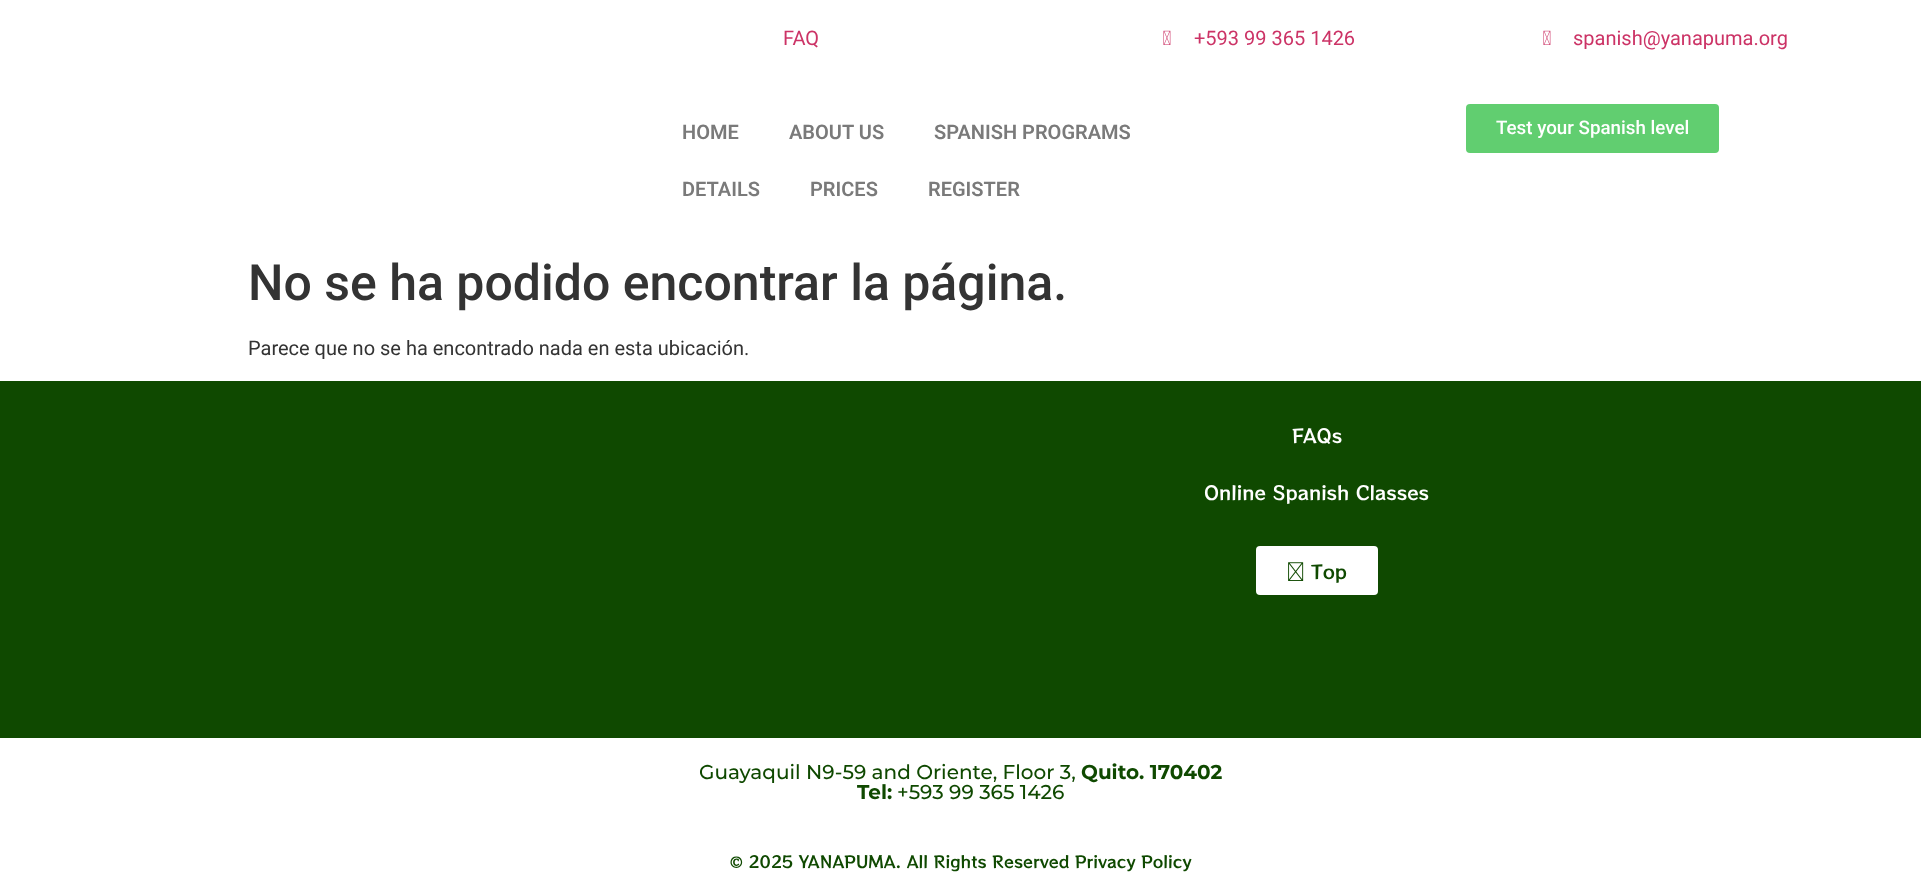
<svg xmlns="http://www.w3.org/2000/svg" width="1921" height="893">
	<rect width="100%" height="100%" fill="#FFFFFF" />
	<text x="783" y="45" font-family="Roboto" font-size="20" fill="#CC3366">FAQ</text>
	<image x="1163" y="30" width="8" height="15" href="assets/img1.png" />
	<text x="1194" y="45" font-family="Roboto" font-size="20" fill="#CC3366">+593 99 365 1426</text>
	<image x="1543" y="30" width="8" height="15" href="assets/img1.png" />
	<text x="1573" y="45" font-family="Roboto" font-size="20" fill="#CC3366">spanish@yanapuma.org</text>
	<g font-family="Roboto" font-size="20" font-weight="600" fill="#7A7A7A">
		<text x="682" y="139">HOME</text>
		<text x="789" y="139">ABOUT US</text>
		<text x="934" y="139">SPANISH PROGRAMS</text>
		<text x="682" y="196">DETAILS</text>
		<text x="810" y="196">PRICES</text>
		<text x="928" y="196">REGISTER</text>
	</g>
	<rect x="1466" y="104" width="253" height="49" rx="4" fill="#61CE70" />
	<text x="1496" y="134" font-family="Roboto" font-size="18.75" font-weight="500" fill="#FFFFFF">Test your Spanish level</text>
	<text x="248" y="300" font-family="Roboto" font-size="50" font-weight="500" fill="#333333">No se ha podido encontrar la página.</text>
	<text x="248" y="355" font-family="Roboto" font-size="20" fill="#333333">Parece que no se ha encontrado nada en esta ubicación.</text>
	<rect x="0" y="381" width="1921" height="357" fill="#0F4900" />
	<g font-family="RocknRoll One" font-size="18.75" fill="#FFFFFF">
		<text x="1292" y="443">FAQs</text>
		<text x="1204" y="500">Online Spanish Classes</text>
	</g>
	<rect x="1256" y="546" width="122" height="49" rx="4" fill="#FFFFFF" />
	<image x="1288" y="562" width="16" height="19" href="assets/img2.png" />
	<text x="1311" y="579" font-family="RocknRoll One" font-size="18.75" fill="#0F4900">Top</text>
	<text x="699" y="779" font-family="Montserrat" font-size="20" font-weight="500" fill="#0F4900">Guayaquil N9-59 and Oriente, Floor 3,</text>
	<g font-family="Montserrat" font-size="20" font-weight="700" fill="#0F4900">
		<text x="1081" y="779">Quito. 170402</text>
		<text x="857" y="799">Tel:</text>
	</g>
	<text x="897" y="799" font-family="Montserrat" font-size="20" font-weight="500" fill="#0F4900">+593 99 365 1426</text>
	<text x="730" y="868" font-family="RocknRoll One" font-size="16.25" fill="#0F4900">© 2025 YANAPUMA. All Rights Reserved Privacy Policy</text>
</svg>
